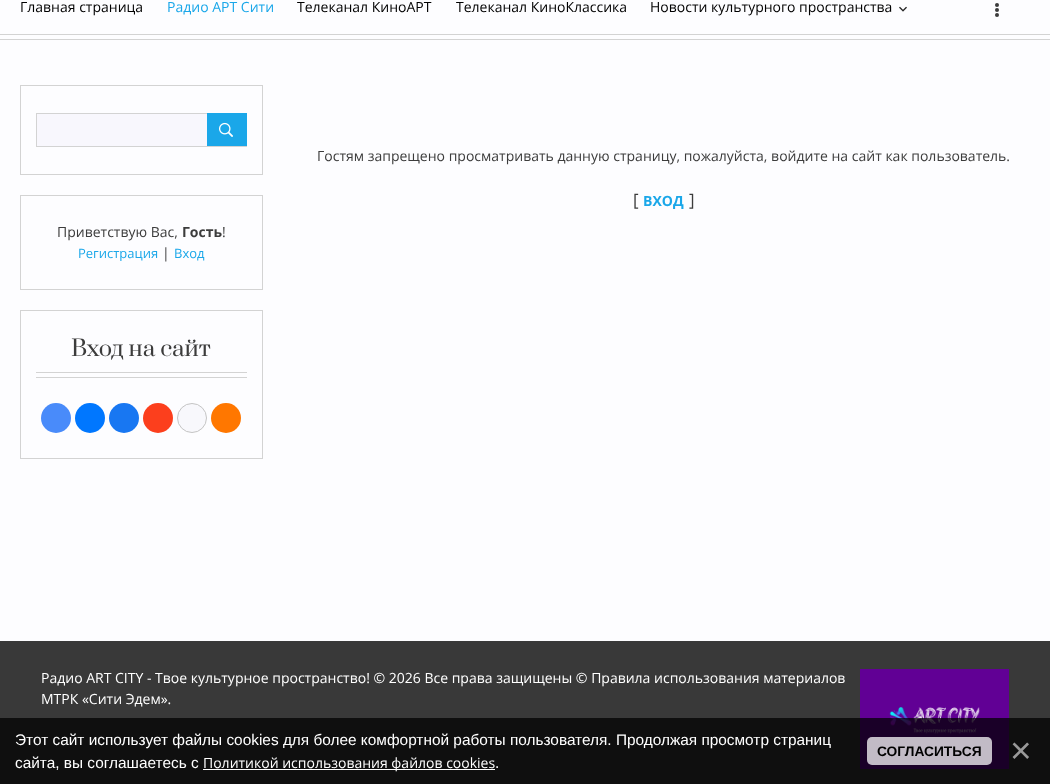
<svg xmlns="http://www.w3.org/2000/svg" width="1050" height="784">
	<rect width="100%" height="100%" fill="#FDFDFF" />
	<rect x="0" y="39" width="1050" height="1" fill="#D3D3D3" />
	<text x="20" y="12" font-family="Open Sans" font-size="14" fill="#000000">Главная страница</text>
	<text x="167" y="12" font-family="Open Sans" font-size="14" fill="#1AA7E9">Радио АРТ Сити</text>
	<g font-family="Open Sans" font-size="14" fill="#000000">
		<text x="297" y="12">Телеканал КиноАРТ</text>
		<text x="456" y="12">Телеканал КиноКлассика</text>
		<text x="650" y="12">Новости культурного пространства</text>
	</g>
	<image x="899" y="6" width="8" height="6" href="assets/img1.png" />
	<circle cx="997" cy="5" r="2" fill="#3C3C3C" />
	<circle cx="997" cy="10" r="2" fill="#3C3C3C" />
	<circle cx="997" cy="15" r="2" fill="#3C3C3C" />
	<rect x="0" y="34" width="1050" height="1" fill="#D3D3D3" />
	<text x="317" y="161" font-family="Open Sans" font-size="14" fill="#3C3C3C">Гостям запрещено просматривать данную страницу, пожалуйста, войдите на сайт как пользователь.</text>
	<text x="633" y="206" font-family="Open Sans" font-size="17" fill="#3C3C3C">[</text>
	<text x="643" y="206" font-family="Open Sans" font-size="14" font-weight="700" fill="#1AA7E9">ВХОД</text>
	<text x="689" y="206" font-family="Open Sans" font-size="17" fill="#3C3C3C">]</text>
	<rect x="20.5" y="85.5" width="242" height="89" fill="none" stroke="#D3D3D3" />
	<rect x="37" y="114" width="170" height="32" fill="#F8F7FD" />
	<rect x="36.5" y="113.5" width="210" height="33" fill="none" stroke="#D3D3D3" />
	<rect x="207" y="113" width="40" height="33" fill="#1AA7E9" />
	<image x="219" y="122" width="14" height="15" href="assets/img2.png" />
	<rect x="20.5" y="195.5" width="242" height="94" fill="none" stroke="#D3D3D3" />
	<text x="57" y="237" font-family="Open Sans" font-size="14" fill="#3C3C3C">Приветствую Вас,</text>
	<text x="182" y="237" font-family="Open Sans" font-size="14" font-weight="700" fill="#3C3C3C">Гость</text>
	<text x="222" y="237" font-family="Open Sans" font-size="14" fill="#3C3C3C">!</text>
	<text x="78" y="258" font-family="Open Sans" font-size="13" fill="#1AA7E9">Регистрация</text>
	<text x="162" y="258" font-family="Open Sans" font-size="14" fill="#3C3C3C">|</text>
	<text x="174" y="258" font-family="Open Sans" font-size="13" fill="#1AA7E9">Вход</text>
	<rect x="20.5" y="310.5" width="242" height="148" fill="none" stroke="#D3D3D3" />
	<rect x="36" y="377" width="211" height="1" fill="#D3D3D3" />
	<text x="71" y="356" font-family="Prata" font-size="22" fill="#3C3C3C">Вход на сайт</text>
	<rect x="36" y="372" width="211" height="1" fill="#D3D3D3" />
	<circle cx="56" cy="418" r="15" fill="#498BFA" />
	<circle cx="90" cy="418" r="15" fill="#0077FF" />
	<circle cx="124" cy="418" r="15" fill="#1877F2" />
	<circle cx="158" cy="418" r="15" fill="#FC3F1D" />
	<circle cx="192" cy="418" r="14.5" fill="#F8F8FC" stroke="#C4C4C4" />
	<circle cx="226" cy="418" r="15" fill="#FF7700" />
	<rect x="0" y="641" width="1050" height="143" fill="#393939" />
	<g font-family="Open Sans" font-size="14" fill="#FFFFFF">
		<text x="41" y="683">Радио ART CITY - Твое культурное пространство! © 2026 Все права защищены © Правила использования материалов</text>
		<text x="41" y="704">МТРК «Сити Эдем».</text>
	</g>
	<image x="860" y="669" width="149" height="100" href="assets/img3.png" />
	<rect x="0" y="718" width="1050" height="66" fill="#000000" fill-opacity="0.73" />
	<g font-family="Liberation Sans" font-size="15.4" fill="#FFFFFF">
		<text x="15" y="745">Этот сайт использует файлы cookies для более комфортной работы пользователя. Продолжая просмотр страниц</text>
		<text x="15" y="768">сайта, вы соглашаетесь с</text>
	</g>
	<rect x="203" y="769" width="292" height="1" fill="#FFFFFF" />
	<text x="203" y="768" font-family="Open Sans" font-size="14" fill="#FFFFFF">Политикой использования файлов cookies</text>
	<text x="495" y="768" font-family="Liberation Sans" font-size="15.4" fill="#FFFFFF">.</text>
	<rect x="867" y="737" width="125" height="28" rx="5" fill="#C2BBC6" />
	<text x="877" y="756" font-family="Liberation Sans" font-size="13.75" font-weight="700" fill="#000000">СОГЛАСИТЬСЯ</text>
	<text x="1010" y="763" font-family="Liberation Sans" font-size="37" fill="#999999">×</text>
</svg>
